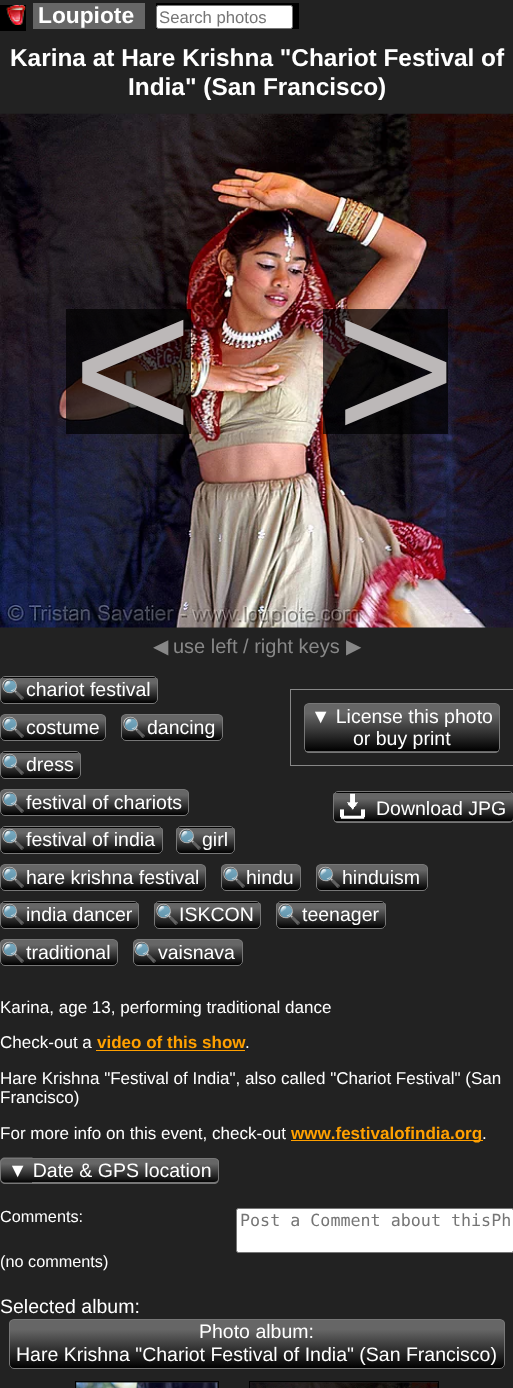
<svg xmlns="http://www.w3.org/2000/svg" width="513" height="1388">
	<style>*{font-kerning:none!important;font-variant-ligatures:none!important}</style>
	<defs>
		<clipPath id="clip1"><rect x="0" y="676" width="158" height="28" rx="5" /></clipPath>
		<linearGradient id="g1" gradientUnits="userSpaceOnUse" x1="79" y1="653" x2="79" y2="678"><stop offset="0" stop-color="#666666" /><stop offset="0.2" stop-color="#666666" /><stop offset="1" stop-color="#000000" /></linearGradient>
		<linearGradient id="g2" gradientUnits="userSpaceOnUse" x1="79" y1="678" x2="79" y2="703"><stop offset="0" stop-color="#666666" /><stop offset="0.2" stop-color="#666666" /><stop offset="1" stop-color="#000000" /></linearGradient>
		<clipPath id="clip2"><rect x="0" y="714" width="106" height="27" rx="5" /></clipPath>
		<linearGradient id="g3" gradientUnits="userSpaceOnUse" x1="53" y1="715" x2="53" y2="740"><stop offset="0" stop-color="#666666" /><stop offset="0.2" stop-color="#666666" /><stop offset="1" stop-color="#000000" /></linearGradient>
		<clipPath id="clip3"><rect x="121" y="714" width="102" height="27" rx="5" /></clipPath>
		<linearGradient id="g4" gradientUnits="userSpaceOnUse" x1="172" y1="715" x2="172" y2="740"><stop offset="0" stop-color="#666666" /><stop offset="0.2" stop-color="#666666" /><stop offset="1" stop-color="#000000" /></linearGradient>
		<clipPath id="clip4"><rect x="0" y="751" width="81" height="28" rx="5" /></clipPath>
		<linearGradient id="g5" gradientUnits="userSpaceOnUse" x1="41" y1="728" x2="41" y2="753"><stop offset="0" stop-color="#666666" /><stop offset="0.2" stop-color="#666666" /><stop offset="1" stop-color="#000000" /></linearGradient>
		<linearGradient id="g6" gradientUnits="userSpaceOnUse" x1="41" y1="753" x2="41" y2="778"><stop offset="0" stop-color="#666666" /><stop offset="0.2" stop-color="#666666" /><stop offset="1" stop-color="#000000" /></linearGradient>
		<clipPath id="clip5"><rect x="0" y="789" width="189" height="27" rx="5" /></clipPath>
		<linearGradient id="g7" gradientUnits="userSpaceOnUse" x1="94" y1="790" x2="94" y2="815"><stop offset="0" stop-color="#666666" /><stop offset="0.2" stop-color="#666666" /><stop offset="1" stop-color="#000000" /></linearGradient>
		<clipPath id="clip6"><rect x="0" y="826" width="163" height="28" rx="5" /></clipPath>
		<linearGradient id="g8" gradientUnits="userSpaceOnUse" x1="81" y1="803" x2="81" y2="828"><stop offset="0" stop-color="#666666" /><stop offset="0.2" stop-color="#666666" /><stop offset="1" stop-color="#000000" /></linearGradient>
		<linearGradient id="g9" gradientUnits="userSpaceOnUse" x1="81" y1="828" x2="81" y2="853"><stop offset="0" stop-color="#666666" /><stop offset="0.2" stop-color="#666666" /><stop offset="1" stop-color="#000000" /></linearGradient>
		<clipPath id="clip7"><rect x="176" y="826" width="59" height="28" rx="5" /></clipPath>
		<linearGradient id="g10" gradientUnits="userSpaceOnUse" x1="206" y1="803" x2="206" y2="828"><stop offset="0" stop-color="#666666" /><stop offset="0.2" stop-color="#666666" /><stop offset="1" stop-color="#000000" /></linearGradient>
		<linearGradient id="g11" gradientUnits="userSpaceOnUse" x1="206" y1="828" x2="206" y2="853"><stop offset="0" stop-color="#666666" /><stop offset="0.2" stop-color="#666666" /><stop offset="1" stop-color="#000000" /></linearGradient>
		<clipPath id="clip8"><rect x="0" y="864" width="206" height="27" rx="5" /></clipPath>
		<linearGradient id="g12" gradientUnits="userSpaceOnUse" x1="103" y1="865" x2="103" y2="890"><stop offset="0" stop-color="#666666" /><stop offset="0.2" stop-color="#666666" /><stop offset="1" stop-color="#000000" /></linearGradient>
		<clipPath id="clip9"><rect x="221" y="864" width="80" height="27" rx="5" /></clipPath>
		<linearGradient id="g13" gradientUnits="userSpaceOnUse" x1="261" y1="865" x2="261" y2="890"><stop offset="0" stop-color="#666666" /><stop offset="0.2" stop-color="#666666" /><stop offset="1" stop-color="#000000" /></linearGradient>
		<clipPath id="clip10"><rect x="316" y="864" width="112" height="27" rx="5" /></clipPath>
		<linearGradient id="g14" gradientUnits="userSpaceOnUse" x1="372" y1="865" x2="372" y2="890"><stop offset="0" stop-color="#666666" /><stop offset="0.2" stop-color="#666666" /><stop offset="1" stop-color="#000000" /></linearGradient>
		<clipPath id="clip11"><rect x="0" y="901" width="139" height="28" rx="5" /></clipPath>
		<linearGradient id="g15" gradientUnits="userSpaceOnUse" x1="69" y1="878" x2="69" y2="903"><stop offset="0" stop-color="#666666" /><stop offset="0.2" stop-color="#666666" /><stop offset="1" stop-color="#000000" /></linearGradient>
		<linearGradient id="g16" gradientUnits="userSpaceOnUse" x1="69" y1="903" x2="69" y2="928"><stop offset="0" stop-color="#666666" /><stop offset="0.2" stop-color="#666666" /><stop offset="1" stop-color="#000000" /></linearGradient>
		<clipPath id="clip12"><rect x="154" y="901" width="107" height="28" rx="5" /></clipPath>
		<linearGradient id="g17" gradientUnits="userSpaceOnUse" x1="208" y1="878" x2="208" y2="903"><stop offset="0" stop-color="#666666" /><stop offset="0.2" stop-color="#666666" /><stop offset="1" stop-color="#000000" /></linearGradient>
		<linearGradient id="g18" gradientUnits="userSpaceOnUse" x1="208" y1="903" x2="208" y2="928"><stop offset="0" stop-color="#666666" /><stop offset="0.2" stop-color="#666666" /><stop offset="1" stop-color="#000000" /></linearGradient>
		<clipPath id="clip13"><rect x="276" y="901" width="110" height="28" rx="5" /></clipPath>
		<linearGradient id="g19" gradientUnits="userSpaceOnUse" x1="331" y1="878" x2="331" y2="903"><stop offset="0" stop-color="#666666" /><stop offset="0.2" stop-color="#666666" /><stop offset="1" stop-color="#000000" /></linearGradient>
		<linearGradient id="g20" gradientUnits="userSpaceOnUse" x1="331" y1="903" x2="331" y2="928"><stop offset="0" stop-color="#666666" /><stop offset="0.2" stop-color="#666666" /><stop offset="1" stop-color="#000000" /></linearGradient>
		<clipPath id="clip14"><rect x="0" y="939" width="118" height="27" rx="5" /></clipPath>
		<linearGradient id="g21" gradientUnits="userSpaceOnUse" x1="59" y1="940" x2="59" y2="965"><stop offset="0" stop-color="#666666" /><stop offset="0.2" stop-color="#666666" /><stop offset="1" stop-color="#000000" /></linearGradient>
		<clipPath id="clip15"><rect x="133" y="939" width="110" height="27" rx="5" /></clipPath>
		<linearGradient id="g22" gradientUnits="userSpaceOnUse" x1="188" y1="940" x2="188" y2="965"><stop offset="0" stop-color="#666666" /><stop offset="0.2" stop-color="#666666" /><stop offset="1" stop-color="#000000" /></linearGradient>
		<clipPath id="clip16"><rect x="304" y="703" width="196" height="50" rx="5" /></clipPath>
		<linearGradient id="g23" gradientUnits="userSpaceOnUse" x1="402" y1="704" x2="402" y2="751"><stop offset="0" stop-color="#666666" /><stop offset="0.2" stop-color="#666666" /><stop offset="1" stop-color="#000000" /></linearGradient>
		<linearGradient id="g24" gradientUnits="userSpaceOnUse" x1="402" y1="751" x2="402" y2="799"><stop offset="0" stop-color="#666666" /><stop offset="0.2" stop-color="#666666" /><stop offset="1" stop-color="#000000" /></linearGradient>
		<clipPath id="clip17"><rect x="333" y="791" width="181" height="32" rx="5" /></clipPath>
		<linearGradient id="g25" gradientUnits="userSpaceOnUse" x1="423" y1="764" x2="423" y2="793"><stop offset="0" stop-color="#666666" /><stop offset="0.2" stop-color="#666666" /><stop offset="1" stop-color="#000000" /></linearGradient>
		<linearGradient id="g26" gradientUnits="userSpaceOnUse" x1="423" y1="793" x2="423" y2="821"><stop offset="0" stop-color="#666666" /><stop offset="0.2" stop-color="#666666" /><stop offset="1" stop-color="#000000" /></linearGradient>
		<linearGradient id="g27" gradientUnits="userSpaceOnUse" x1="423" y1="821" x2="423" y2="850"><stop offset="0" stop-color="#666666" /><stop offset="0.2" stop-color="#666666" /><stop offset="1" stop-color="#000000" /></linearGradient>
		<clipPath id="clip18"><path d="M5 1158H33V1184H5C2 1184 0 1182 0 1179V1163C0 1160 2 1158 5 1158Z" /></clipPath>
		<linearGradient id="g28" gradientUnits="userSpaceOnUse" x1="17" y1="1159" x2="17" y2="1183"><stop offset="0" stop-color="#666666" /><stop offset="0.2" stop-color="#666666" /><stop offset="1" stop-color="#000000" /></linearGradient>
		<clipPath id="clip19"><path d="M33 1158H214C217 1158 219 1160 219 1163V1179C219 1182 217 1184 214 1184H33Z" /></clipPath>
		<linearGradient id="g29" gradientUnits="userSpaceOnUse" x1="125" y1="1159" x2="125" y2="1183"><stop offset="0" stop-color="#666666" /><stop offset="0.2" stop-color="#666666" /><stop offset="1" stop-color="#000000" /></linearGradient>
		<clipPath id="clip20"><rect x="9" y="1319" width="496" height="50" rx="5" /></clipPath>
		<linearGradient id="g30" gradientUnits="userSpaceOnUse" x1="257" y1="1320" x2="257" y2="1368"><stop offset="0" stop-color="#666666" /><stop offset="0.2" stop-color="#666666" /><stop offset="1" stop-color="#000000" /></linearGradient>
	</defs>
	<rect width="100%" height="100%" fill="#222222" />
	<rect x="0" y="5" width="26" height="26" fill="#000000" />
	<image x="6" y="5" width="20" height="20" href="assets/img1.png" />
	<rect x="33" y="3" width="112" height="26" fill="#666666" />
	<text x="38" y="23" font-family="Liberation Sans" font-size="22.75" font-weight="700" fill="#FFFFFF">Loupiote</text>
	<rect x="156" y="3" width="143" height="26" fill="#000000" />
	<rect x="156.5" y="5.5" width="136" height="23" rx="2" fill="#FFFFFF" stroke="#767676" />
	<text x="159" y="23" font-family="Liberation Sans" font-size="16.7" fill="#757575">Search photos</text>
	<g font-family="Liberation Sans" font-size="24.4" font-weight="700" fill="#FFFFFF">
		<text x="10" y="66">Karina at Hare Krishna "Chariot Festival of</text>
		<text x="128" y="95">India" (San Francisco)</text>
	</g>
	<image x="0" y="113" width="513" height="515" href="assets/img2.png" />
	<rect x="66" y="309" width="125" height="125" fill="#000000" fill-opacity="0.7" />
	<text x="72" y="441" font-family="Liberation Sans" font-size="208" fill="#BCB8B8">&lt;</text>
	<rect x="323" y="309" width="125" height="125" fill="#000000" fill-opacity="0.7" />
	<text x="335" y="441" font-family="Liberation Sans" font-size="208" fill="#BCB8B8">&gt;</text>
	<text x="153" y="653" font-family="DejaVu Sans" font-size="20" fill="#888888">◀</text>
	<text x="173" y="653" font-family="Liberation Sans" font-size="20" fill="#888888">use left / right keys</text>
	<text x="346" y="653" font-family="DejaVu Sans" font-size="20" fill="#888888">▶</text>
	<g clip-path="url(#clip1)">
		<rect x="0" y="676" width="158" height="2" fill="url(#g1)" />
		<rect x="0" y="678" width="158" height="25" fill="url(#g2)" />
	</g>
	<rect x="0.5" y="676.5" width="157" height="27" rx="4.5" fill="none" stroke="#777777" />
	<text x="1" y="696" font-family="Noto Color Emoji" font-size="19.5" fill="#FFFFFF">🔍</text>
	<text x="26" y="696" font-family="Liberation Sans" font-size="19.5" fill="#FFFFFF">chariot festival</text>
	<g clip-path="url(#clip2)">
		<rect x="0" y="715" width="106" height="25" fill="url(#g3)" />
	</g>
	<rect x="0.5" y="714.5" width="105" height="26" rx="4.5" fill="none" stroke="#777777" />
	<text x="1" y="734" font-family="Noto Color Emoji" font-size="19.5" fill="#FFFFFF">🔍</text>
	<text x="26" y="734" font-family="Liberation Sans" font-size="19.5" fill="#FFFFFF">costume</text>
	<g clip-path="url(#clip3)">
		<rect x="121" y="715" width="102" height="25" fill="url(#g4)" />
	</g>
	<rect x="121.5" y="714.5" width="101" height="26" rx="4.5" fill="none" stroke="#777777" />
	<text x="122" y="734" font-family="Noto Color Emoji" font-size="19.5" fill="#FFFFFF">🔍</text>
	<text x="147" y="734" font-family="Liberation Sans" font-size="19.5" fill="#FFFFFF">dancing</text>
	<g clip-path="url(#clip4)">
		<rect x="0" y="751" width="81" height="2" fill="url(#g5)" />
		<rect x="0" y="753" width="81" height="25" fill="url(#g6)" />
	</g>
	<rect x="0.5" y="751.5" width="80" height="27" rx="4.5" fill="none" stroke="#777777" />
	<text x="1" y="771" font-family="Noto Color Emoji" font-size="19.5" fill="#FFFFFF">🔍</text>
	<text x="26" y="771" font-family="Liberation Sans" font-size="19.5" fill="#FFFFFF">dress</text>
	<g clip-path="url(#clip5)">
		<rect x="0" y="790" width="189" height="25" fill="url(#g7)" />
	</g>
	<rect x="0.5" y="789.5" width="188" height="26" rx="4.5" fill="none" stroke="#777777" />
	<text x="1" y="809" font-family="Noto Color Emoji" font-size="19.5" fill="#FFFFFF">🔍</text>
	<text x="26" y="809" font-family="Liberation Sans" font-size="19.5" fill="#FFFFFF">festival of chariots</text>
	<g clip-path="url(#clip6)">
		<rect x="0" y="826" width="163" height="2" fill="url(#g8)" />
		<rect x="0" y="828" width="163" height="25" fill="url(#g9)" />
	</g>
	<rect x="0.5" y="826.5" width="162" height="27" rx="4.5" fill="none" stroke="#777777" />
	<text x="1" y="846" font-family="Noto Color Emoji" font-size="19.5" fill="#FFFFFF">🔍</text>
	<text x="26" y="846" font-family="Liberation Sans" font-size="19.5" fill="#FFFFFF">festival of india</text>
	<g clip-path="url(#clip7)">
		<rect x="176" y="826" width="59" height="2" fill="url(#g10)" />
		<rect x="176" y="828" width="59" height="25" fill="url(#g11)" />
	</g>
	<rect x="176.5" y="826.5" width="58" height="27" rx="4.5" fill="none" stroke="#777777" />
	<text x="178" y="846" font-family="Noto Color Emoji" font-size="19.5" fill="#FFFFFF">🔍</text>
	<text x="202" y="846" font-family="Liberation Sans" font-size="19.5" fill="#FFFFFF">girl</text>
	<g clip-path="url(#clip8)">
		<rect x="0" y="865" width="206" height="25" fill="url(#g12)" />
	</g>
	<rect x="0.5" y="864.5" width="205" height="26" rx="4.5" fill="none" stroke="#777777" />
	<text x="1" y="884" font-family="Noto Color Emoji" font-size="19.5" fill="#FFFFFF">🔍</text>
	<text x="26" y="884" font-family="Liberation Sans" font-size="19.5" fill="#FFFFFF">hare krishna festival</text>
	<g clip-path="url(#clip9)">
		<rect x="221" y="865" width="80" height="25" fill="url(#g13)" />
	</g>
	<rect x="221.5" y="864.5" width="79" height="26" rx="4.5" fill="none" stroke="#777777" />
	<text x="222" y="884" font-family="Noto Color Emoji" font-size="19.5" fill="#FFFFFF">🔍</text>
	<text x="246" y="884" font-family="Liberation Sans" font-size="19.5" fill="#FFFFFF">hindu</text>
	<g clip-path="url(#clip10)">
		<rect x="316" y="865" width="112" height="25" fill="url(#g14)" />
	</g>
	<rect x="316.5" y="864.5" width="111" height="26" rx="4.5" fill="none" stroke="#777777" />
	<text x="317" y="884" font-family="Noto Color Emoji" font-size="19.5" fill="#FFFFFF">🔍</text>
	<text x="342" y="884" font-family="Liberation Sans" font-size="19.5" fill="#FFFFFF">hinduism</text>
	<g clip-path="url(#clip11)">
		<rect x="0" y="901" width="139" height="2" fill="url(#g15)" />
		<rect x="0" y="903" width="139" height="25" fill="url(#g16)" />
	</g>
	<rect x="0.5" y="901.5" width="138" height="27" rx="4.5" fill="none" stroke="#777777" />
	<text x="1" y="921" font-family="Noto Color Emoji" font-size="19.5" fill="#FFFFFF">🔍</text>
	<text x="26" y="921" font-family="Liberation Sans" font-size="19.5" fill="#FFFFFF">india dancer</text>
	<g clip-path="url(#clip12)">
		<rect x="154" y="901" width="107" height="2" fill="url(#g17)" />
		<rect x="154" y="903" width="107" height="25" fill="url(#g18)" />
	</g>
	<rect x="154.5" y="901.5" width="106" height="27" rx="4.5" fill="none" stroke="#777777" />
	<text x="155" y="921" font-family="Noto Color Emoji" font-size="19.5" fill="#FFFFFF">🔍</text>
	<text x="179" y="921" font-family="Liberation Sans" font-size="19.5" fill="#FFFFFF">ISKCON</text>
	<g clip-path="url(#clip13)">
		<rect x="276" y="901" width="110" height="2" fill="url(#g19)" />
		<rect x="276" y="903" width="110" height="25" fill="url(#g20)" />
	</g>
	<rect x="276.5" y="901.5" width="109" height="27" rx="4.5" fill="none" stroke="#777777" />
	<text x="277" y="921" font-family="Noto Color Emoji" font-size="19.5" fill="#FFFFFF">🔍</text>
	<text x="302" y="921" font-family="Liberation Sans" font-size="19.5" fill="#FFFFFF">teenager</text>
	<g clip-path="url(#clip14)">
		<rect x="0" y="940" width="118" height="25" fill="url(#g21)" />
	</g>
	<rect x="0.5" y="939.5" width="117" height="26" rx="4.5" fill="none" stroke="#777777" />
	<text x="1" y="959" font-family="Noto Color Emoji" font-size="19.5" fill="#FFFFFF">🔍</text>
	<text x="26" y="959" font-family="Liberation Sans" font-size="19.5" fill="#FFFFFF">traditional</text>
	<g clip-path="url(#clip15)">
		<rect x="133" y="940" width="110" height="25" fill="url(#g22)" />
	</g>
	<rect x="133.5" y="939.5" width="109" height="26" rx="4.5" fill="none" stroke="#777777" />
	<text x="133" y="959" font-family="Noto Color Emoji" font-size="19.5" fill="#FFFFFF">🔍</text>
	<text x="158" y="959" font-family="Liberation Sans" font-size="19.5" fill="#FFFFFF">vaisnava</text>
	<rect x="290.5" y="689.5" width="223" height="76" fill="none" stroke="#888888" />
	<g clip-path="url(#clip16)">
		<rect x="304" y="704" width="196" height="47" fill="url(#g23)" />
		<rect x="304" y="751" width="196" height="2" fill="url(#g24)" />
	</g>
	<rect x="304.5" y="703.5" width="195" height="49" rx="4.5" fill="none" stroke="#777777" />
	<g font-family="Liberation Sans" font-size="19.5" fill="#FFFFFF">
		<text x="311" y="723">▼ License this photo</text>
		<text x="353" y="745">or buy print</text>
	</g>
	<g clip-path="url(#clip17)">
		<rect x="333" y="791" width="180" height="2" fill="url(#g25)" />
		<rect x="333" y="793" width="180" height="28" fill="url(#g26)" />
		<rect x="333" y="821" width="180" height="2" fill="url(#g27)" />
	</g>
	<rect x="333.5" y="791.5" width="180" height="31" rx="4.5" fill="none" stroke="#777777" />
	<image x="340" y="793" width="25" height="26" href="assets/img3.png" />
	<text x="376" y="815" font-family="Liberation Sans" font-size="19.5" fill="#FFFFFF">Download JPG</text>
	<g font-family="Liberation Sans" font-size="17.05" fill="#FFFFFF">
		<text x="0" y="1013">Karina, age 13, performing traditional dance</text>
		<text x="0" y="1048">Check-out a</text>
	</g>
	<text x="97" y="1048" font-family="Liberation Sans" font-size="17.05" font-weight="700" fill="#FFA000">video of this show</text>
	<rect x="96" y="1050" width="149" height="1" fill="#FFA000" />
	<g font-family="Liberation Sans" font-size="17.05" fill="#FFFFFF">
		<text x="245" y="1048">.</text>
		<text x="0" y="1084">Hare Krishna "Festival of India", also called "Chariot Festival" (San</text>
		<text x="0" y="1103">Francisco)</text>
		<text x="0" y="1139">For more info on this event, check-out</text>
	</g>
	<rect x="291" y="1140" width="192" height="1" fill="#FFA000" />
	<text x="291" y="1139" font-family="Liberation Sans" font-size="17.05" font-weight="700" fill="#FFA000">www.festivalofindia.org</text>
	<text x="482" y="1139" font-family="Liberation Sans" font-size="17.05" fill="#FFFFFF">.</text>
	<g clip-path="url(#clip18)">
		<rect x="0" y="1159" width="33" height="24" fill="url(#g28)" />
	</g>
	<path d="M5 1157.5H32.5V1184H5C2 1184 0 1181.5 0 1179V1162.5C0 1159.5 2 1157.5 5 1157.5ZM5 1159H32.5V1182.5H5C3 1182.5 1 1181 1 1179V1162.5C1 1160.5 3 1159 5 1159Z" fill="#777777" fill-rule="evenodd" />
	<g clip-path="url(#clip19)">
		<rect x="33" y="1159" width="186" height="24" fill="url(#g29)" />
	</g>
	<path d="M32 1158H214C217 1158 219 1160 219 1162V1179C219 1182 217 1184 214 1184H32ZM32 1159H214C216 1159 218 1160 218 1162V1179C218 1181 216 1182 214 1182H32Z" fill="#777777" fill-rule="evenodd" />
	<text x="8" y="1177" font-family="Liberation Sans" font-size="19.5" fill="#FFFFFF">▼ Date &amp; GPS location</text>
	<text x="0" y="1222" font-family="Liberation Sans" font-size="16.25" fill="#FFFFFF">Comments:</text>
	<rect x="236.5" y="1208.5" width="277" height="44" rx="2" fill="#FFFFFF" stroke="#767676" />
	<text x="240" y="1226" font-family="DejaVu Sans Mono" font-size="16.7" fill="#757575">Post a Comment about thisPh</text>
	<text x="0" y="1267" font-family="Liberation Sans" font-size="16.25" fill="#FFFFFF">(no comments)</text>
	<text x="0" y="1313" font-family="Liberation Sans" font-size="19.5" fill="#FFFFFF">Selected album:</text>
	<g clip-path="url(#clip20)">
		<rect x="9" y="1320" width="496" height="48" fill="url(#g30)" />
	</g>
	<rect x="9.5" y="1319.5" width="495" height="49" rx="4.5" fill="none" stroke="#777777" />
	<g font-family="Liberation Sans" font-size="19.5" fill="#FFFFFF">
		<text x="199" y="1338">Photo album:</text>
		<text x="16" y="1361">Hare Krishna "Chariot Festival of India" (San Francisco)</text>
	</g>
	<rect x="75.5" y="1381.5" width="143" height="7" fill="none" stroke="#000000" />
	<rect x="76" y="1383" width="142" height="5" fill="#000000" />
	<image x="76" y="1382" width="142" height="6" href="assets/img4.png" />
	<rect x="249.5" y="1381.5" width="189" height="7" fill="none" stroke="#000000" />
	<rect x="437" y="1383" width="1" height="5" fill="#000000" />
	<image x="250" y="1382" width="188" height="6" href="assets/img5.png" />
</svg>
